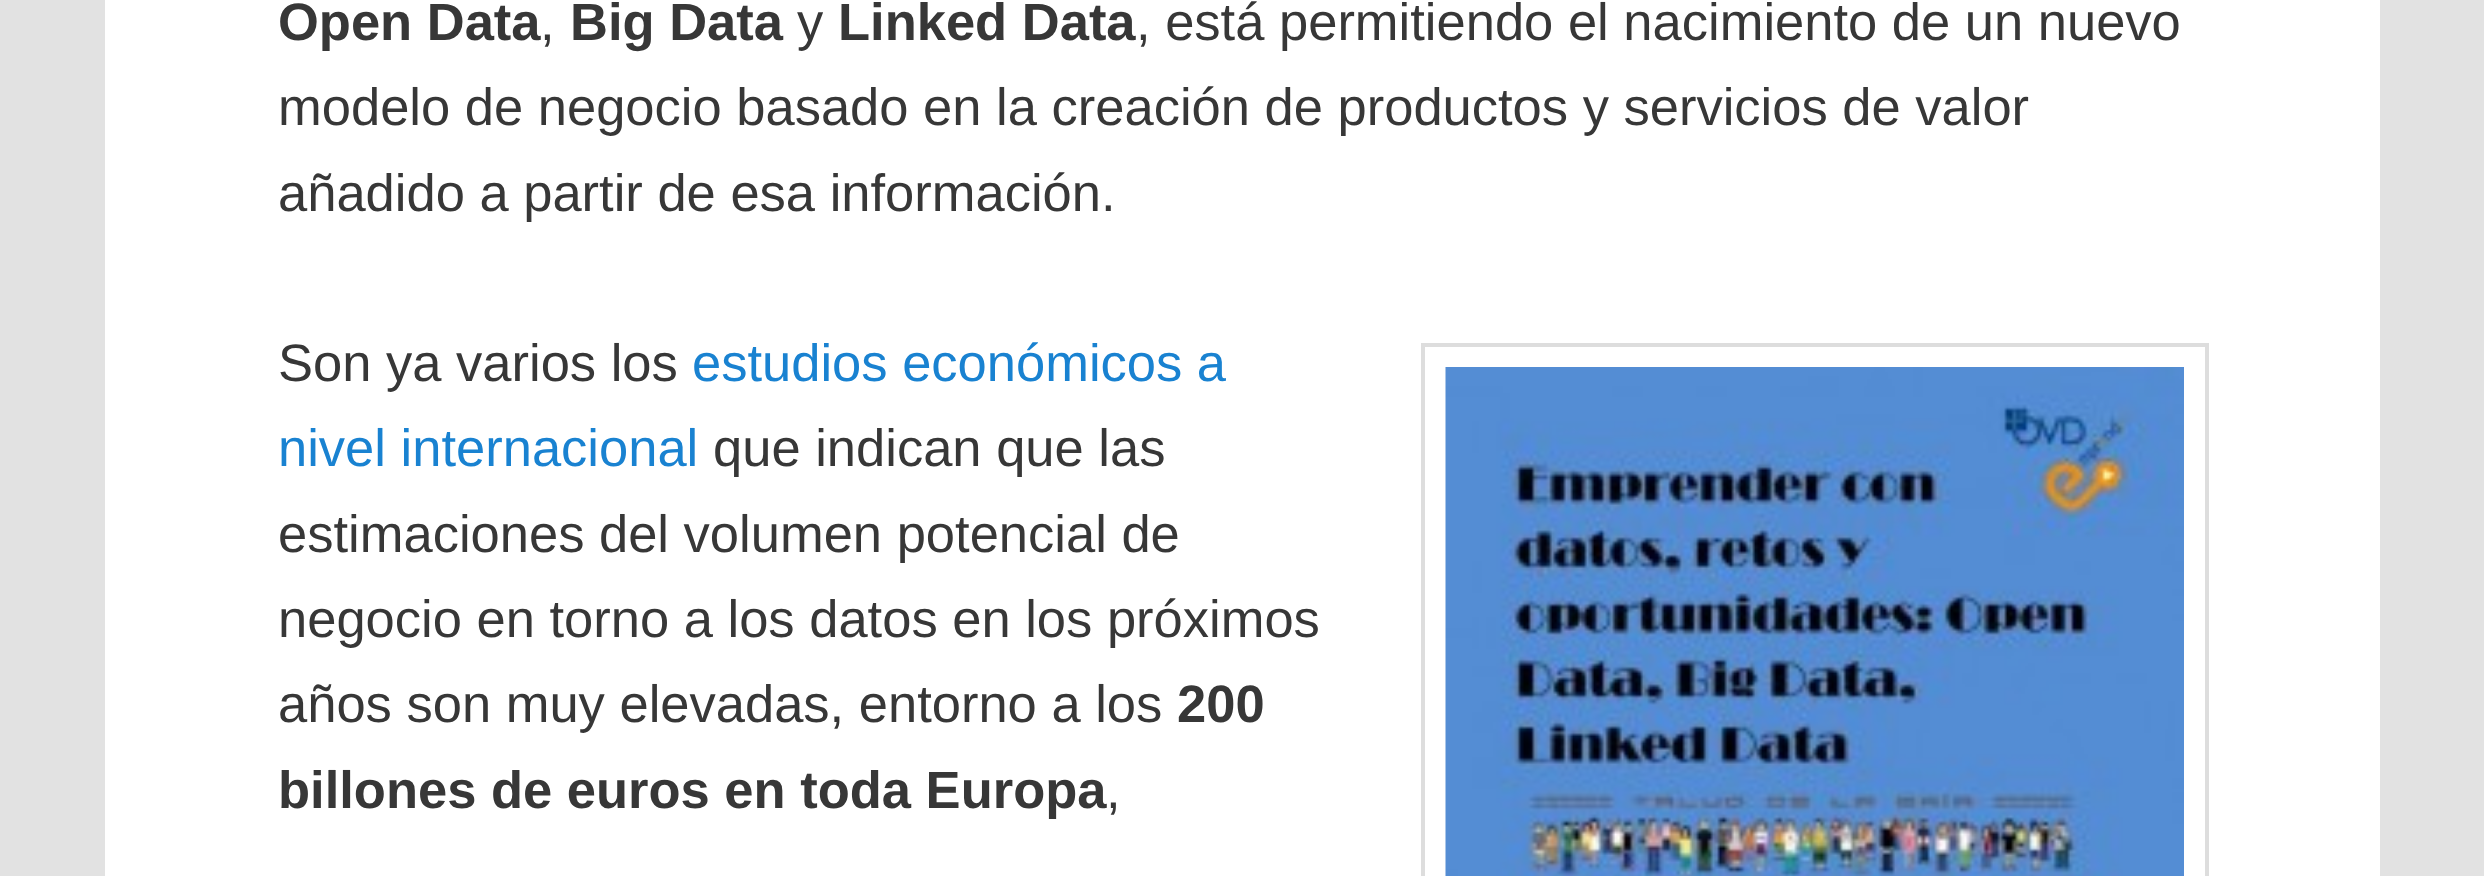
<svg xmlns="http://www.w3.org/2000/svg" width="2484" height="876">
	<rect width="100%" height="100%" fill="#E2E2E2" />
	<rect x="105" y="0" width="2275" height="876" fill="#FFFFFF" />
	<text x="278" y="40" font-family="Liberation Sans" font-size="52.5" font-weight="700" fill="#373737">Open Data</text>
	<text x="540" y="40" font-family="Liberation Sans" font-size="52.5" fill="#373737">,</text>
	<text x="570" y="40" font-family="Liberation Sans" font-size="52.5" font-weight="700" fill="#373737">Big Data</text>
	<text x="797" y="40" font-family="Liberation Sans" font-size="52.5" fill="#373737">y</text>
	<text x="838" y="40" font-family="Liberation Sans" font-size="52.5" font-weight="700" fill="#373737">Linked Data</text>
	<g font-family="Liberation Sans" font-size="52.5" fill="#373737">
		<text x="1136" y="40">, está permitiendo el nacimiento de un nuevo</text>
		<text x="278" y="125">modelo de negocio basado en la creación de productos y servicios de valor</text>
		<text x="278" y="211">añadido a partir de esa información.</text>
		<text x="278" y="381">Son ya varios los</text>
	</g>
	<g font-family="Liberation Sans" font-size="52.5" fill="#1982D1">
		<text x="692" y="381">estudios económicos a</text>
		<text x="278" y="466">nivel internacional</text>
	</g>
	<g font-family="Liberation Sans" font-size="52.5" fill="#373737">
		<text x="713" y="466">que indican que las</text>
		<text x="278" y="552">estimaciones del volumen potencial de</text>
		<text x="278" y="637">negocio en torno a los datos en los próximos</text>
		<text x="278" y="722">años son muy elevadas, entorno a los</text>
	</g>
	<g font-family="Liberation Sans" font-size="52.5" font-weight="700" fill="#373737">
		<text x="1177" y="722">200</text>
		<text x="278" y="808">billones de euros en toda Europa</text>
	</g>
	<text x="1106" y="808" font-family="Liberation Sans" font-size="52.5" fill="#373737">,</text>
	<rect x="1423" y="345" width="784" height="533" fill="none" stroke="#DDDDDD" stroke-width="4" />
	<image x="1445" y="367" width="739" height="509" href="assets/img1.png" />
</svg>
